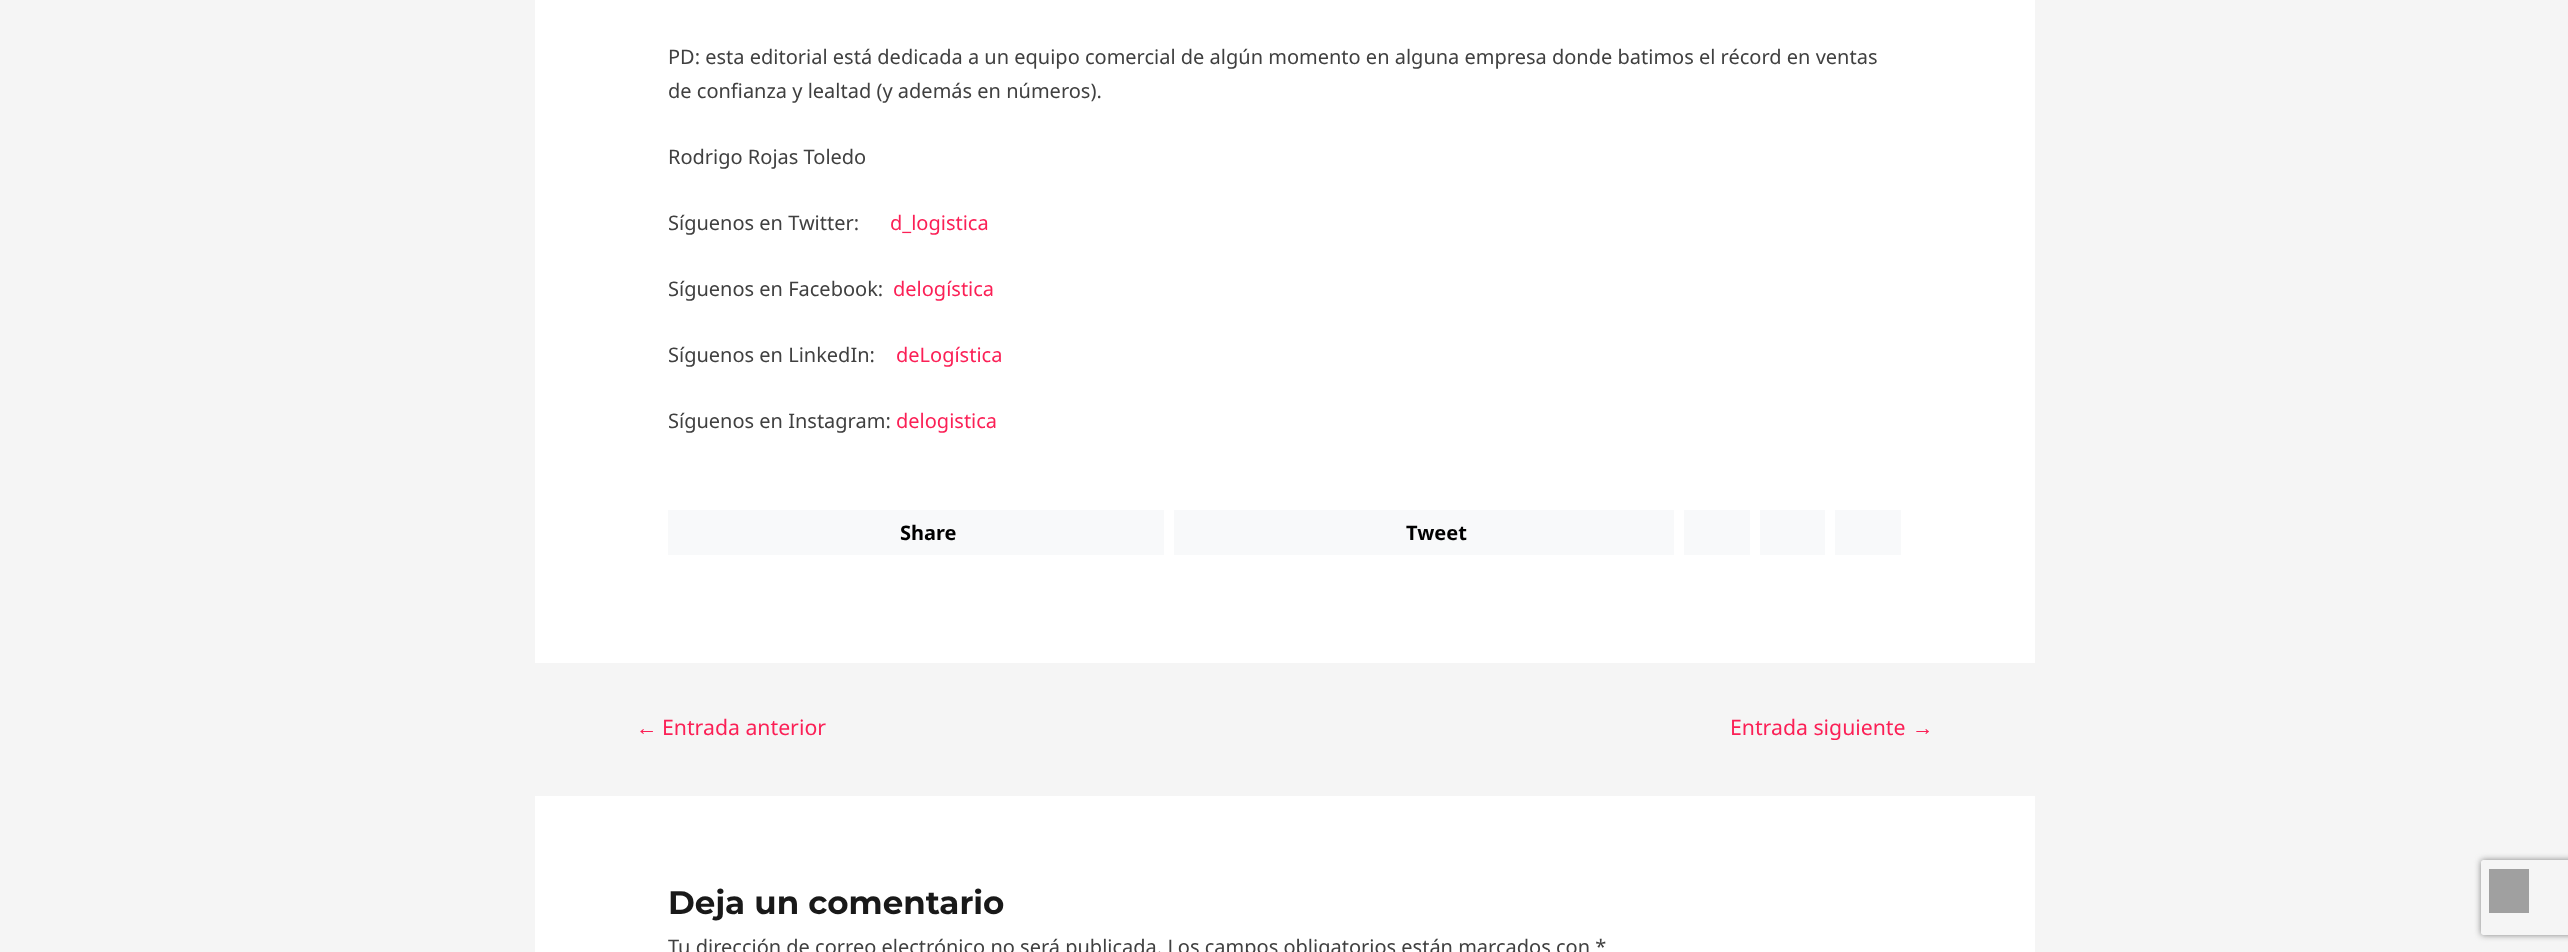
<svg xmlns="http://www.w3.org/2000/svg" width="2568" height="952">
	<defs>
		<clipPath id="clip1"><path d="M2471 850H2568V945H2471ZM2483.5 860H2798.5C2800 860 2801 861 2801 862.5V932.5C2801 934 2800 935 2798.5 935H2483.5C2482 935 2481 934 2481 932.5V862.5C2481 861 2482 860 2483.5 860Z" clip-rule="evenodd" /></clipPath>
	</defs>
	<rect width="100%" height="100%" fill="#F5F5F5" />
	<rect x="535" y="0" width="1500" height="663" fill="#FFFFFF" />
	<g font-family="Noto Sans" font-size="20" fill="#404040">
		<text x="668" y="64">PD: esta editorial está dedicada a un equipo comercial de algún momento en alguna empresa donde batimos el récord en ventas</text>
		<text x="668" y="98">de confianza y lealtad (y además en números).</text>
		<text x="668" y="164">Rodrigo Rojas Toledo</text>
		<text x="668" y="230">Síguenos en Twitter:</text>
	</g>
	<text x="890" y="230" font-family="Noto Sans" font-size="20" fill="#FB2056">d_logistica</text>
	<text x="668" y="296" font-family="Noto Sans" font-size="20" fill="#404040">Síguenos en Facebook:</text>
	<text x="893" y="296" font-family="Noto Sans" font-size="20" fill="#FB2056">delogística</text>
	<text x="668" y="362" font-family="Noto Sans" font-size="20" fill="#404040">Síguenos en LinkedIn:</text>
	<text x="896" y="362" font-family="Noto Sans" font-size="20" fill="#FB2056">deLogística</text>
	<text x="668" y="428" font-family="Noto Sans" font-size="20" fill="#404040">Síguenos en Instagram:</text>
	<text x="896" y="428" font-family="Noto Sans" font-size="20" fill="#FB2056">delogistica</text>
	<rect x="668" y="510" width="496" height="45" fill="#F8F9FA" />
	<text x="900" y="540" font-family="Noto Sans" font-size="20" font-weight="700" fill="#000000">Share</text>
	<rect x="1174" y="510" width="500" height="45" fill="#F8F9FA" />
	<text x="1406" y="540" font-family="Noto Sans" font-size="20" font-weight="700" fill="#000000">Tweet</text>
	<rect x="1684" y="510" width="66" height="45" fill="#F8F9FA" />
	<rect x="1760" y="510" width="65" height="45" fill="#F8F9FA" />
	<rect x="1835" y="510" width="66" height="45" fill="#F8F9FA" />
	<text x="636" y="735" font-family="Liberation Sans" font-size="21.25" fill="#FB2056">←</text>
	<g font-family="Noto Sans" font-size="21.25" fill="#FB2056">
		<text x="662" y="735">Entrada anterior</text>
		<text x="1730" y="735">Entrada siguiente</text>
	</g>
	<text x="1912" y="735" font-family="Liberation Sans" font-size="21.25" fill="#FB2056">→</text>
	<rect x="535" y="796" width="1500" height="156" fill="#FFFFFF" />
	<text x="668" y="914" font-family="Montserrat" font-size="32.5" font-weight="100" fill="#191919">Deja un comentario</text>
	<text x="668" y="954" font-family="Noto Sans" font-size="20" fill="#404040">Tu dirección de correo electrónico no será publicada. Los campos obligatorios están marcados con *</text>
	<rect x="2489" y="869" width="40" height="44" fill="#A0A0A0" />
	<g clip-path="url(#clip1)">
		<rect x="2481" y="860" width="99" height="75" rx="2.5" fill="#808080" filter="blur(3px)" />
	</g>
</svg>
